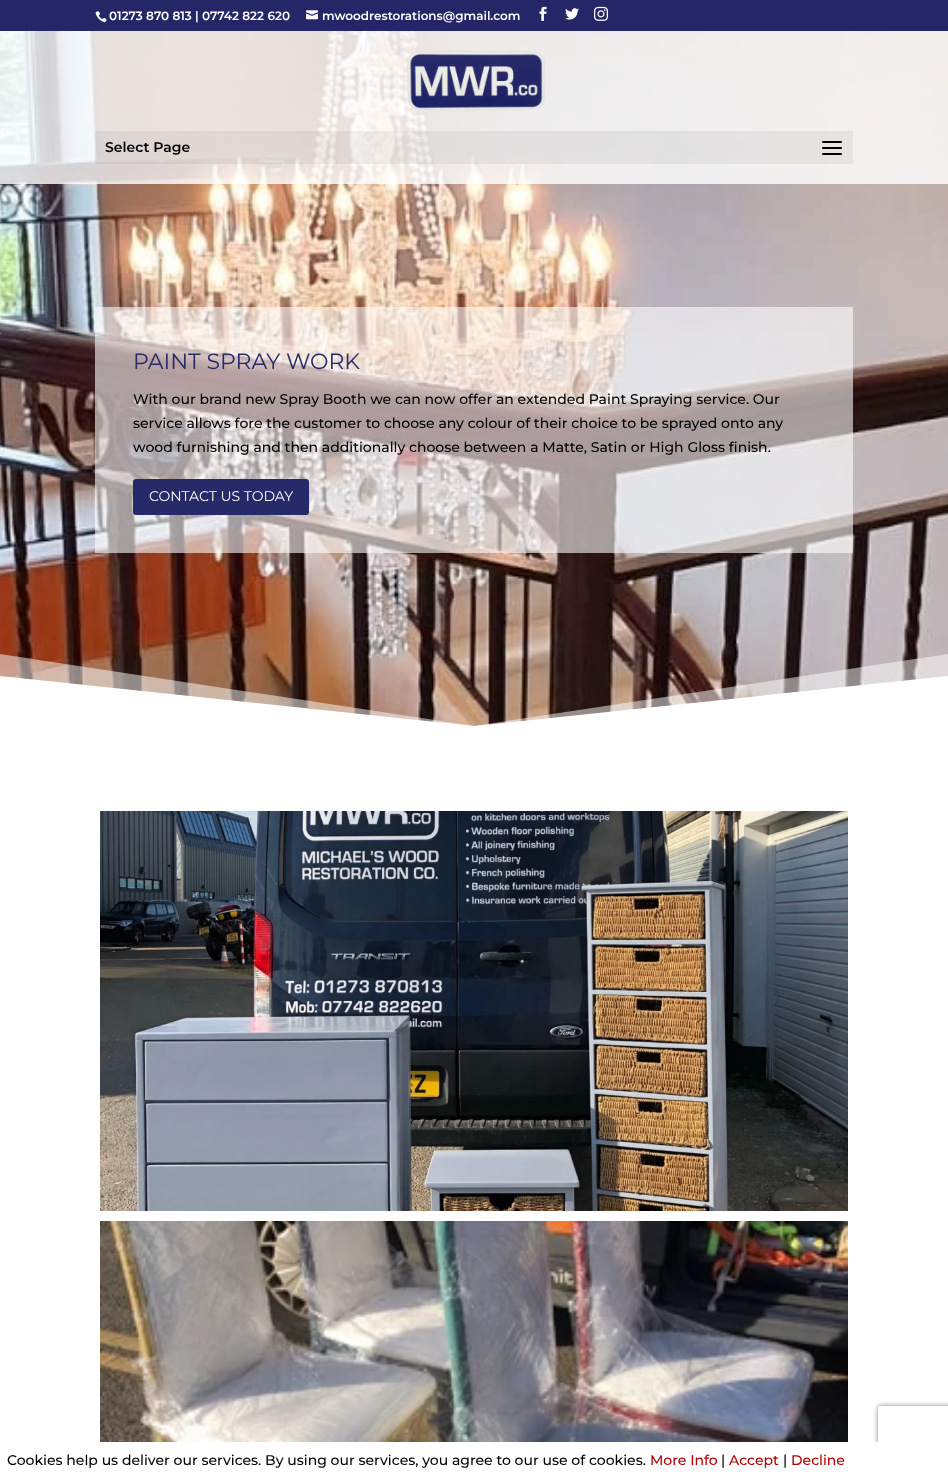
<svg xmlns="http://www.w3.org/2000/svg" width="948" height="1480">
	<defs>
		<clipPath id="clip1"><path d="M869 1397H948V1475H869ZM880 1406H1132C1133 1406 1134 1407 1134 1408V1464C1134 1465 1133 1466 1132 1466H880C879 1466 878 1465 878 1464V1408C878 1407 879 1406 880 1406Z" clip-rule="evenodd" /></clipPath>
	</defs>
	<rect width="100%" height="100%" fill="#FFFFFF" />
	<rect x="0" y="0" width="948" height="31" fill="#252667" />
	<image x="95" y="11" width="12" height="12" href="assets/img1.png" />
	<text x="109" y="20" font-family="'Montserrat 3'" font-size="12" font-weight="100" fill="#FFFFFF">01273 870 813 | 07742 822 620</text>
	<image x="306" y="10" width="12" height="10" href="assets/img2.png" />
	<text x="322" y="20" font-family="'Montserrat 3'" font-size="12" font-weight="100" fill="#FFFFFF">mwoodrestorations@gmail.com</text>
	<image x="539" y="6" width="8" height="15" href="assets/img3.png" />
	<image x="565" y="8" width="14" height="12" href="assets/img4.png" />
	<image x="594" y="6" width="14" height="15" href="assets/img5.png" />
	<image x="0" y="31" width="948" height="695" href="assets/img8.png" />
	<rect x="0" y="31" width="948" height="153" fill="#FFFFFF" fill-opacity="0.81" />
	<image x="407" y="51" width="138" height="60" href="assets/img6.png" />
	<rect x="95" y="131" width="758" height="33" fill="#000000" fill-opacity="0.05" />
	<text x="105" y="152" font-family="'Montserrat 3'" font-size="14" font-weight="100" fill="#000000">Select Page</text>
	<image x="822" y="141" width="20" height="14" href="assets/img7.png" />
	<rect x="95" y="307" width="758" height="246" fill="#FFFFFF" fill-opacity="0.59" />
	<text x="133" y="369" font-family="Montserrat" font-size="22" font-weight="100" fill="#272A69">PAINT SPRAY WORK</text>
	<g font-family="'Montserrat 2'" font-size="14" font-weight="100" fill="#000000">
		<text x="133" y="404">With our brand new Spray Booth we can now offer an extended Paint Spraying service. Our</text>
		<text x="133" y="428">service allows fore the customer to choose any colour of their choice to be sprayed onto any</text>
		<text x="133" y="452">wood furnishing and then additionally choose between a Matte, Satin or High Gloss finish.</text>
	</g>
	<rect x="134" y="480" width="174" height="34" rx="2" fill="#272A69" stroke="#272A69" stroke-width="2" />
	<text x="149" y="501" font-family="Montserrat" font-size="14" font-weight="100" fill="#FFFFFF">CONTACT US TODAY</text>
	<path d="M474 726L0 654V727H948V654Z" fill="#FFFFFF" fill-opacity="0.5" />
	<path d="M474 726L0 676V727H948V676Z" fill="#FFFFFF" />
	<image x="100" y="811" width="748" height="400" href="assets/img9.png" />
	<image x="100" y="1221" width="748" height="221" href="assets/img10.png" />
	<g clip-path="url(#clip1)">
		<rect x="878" y="1406" width="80" height="60" rx="2" fill="#808080" filter="blur(2.5px)" />
	</g>
	<rect x="873" y="1442" width="75" height="29" fill="#FFFFFF" />
	<text x="7" y="1465" font-family="'Montserrat 2'" font-size="14" font-weight="100" fill="#000000">Cookies help us deliver our services. By using our services, you agree to our use of cookies.</text>
	<text x="650" y="1465" font-family="'Montserrat 2'" font-size="14" font-weight="100" fill="#B30000">More Info</text>
	<text x="721" y="1465" font-family="'Montserrat 2'" font-size="14" font-weight="100" fill="#000000">|</text>
	<text x="729" y="1465" font-family="'Montserrat 2'" font-size="14" font-weight="100" fill="#B30000">Accept</text>
	<text x="783" y="1465" font-family="'Montserrat 2'" font-size="14" font-weight="100" fill="#000000">|</text>
	<text x="791" y="1465" font-family="'Montserrat 2'" font-size="14" font-weight="100" fill="#B30000">Decline</text>
</svg>
